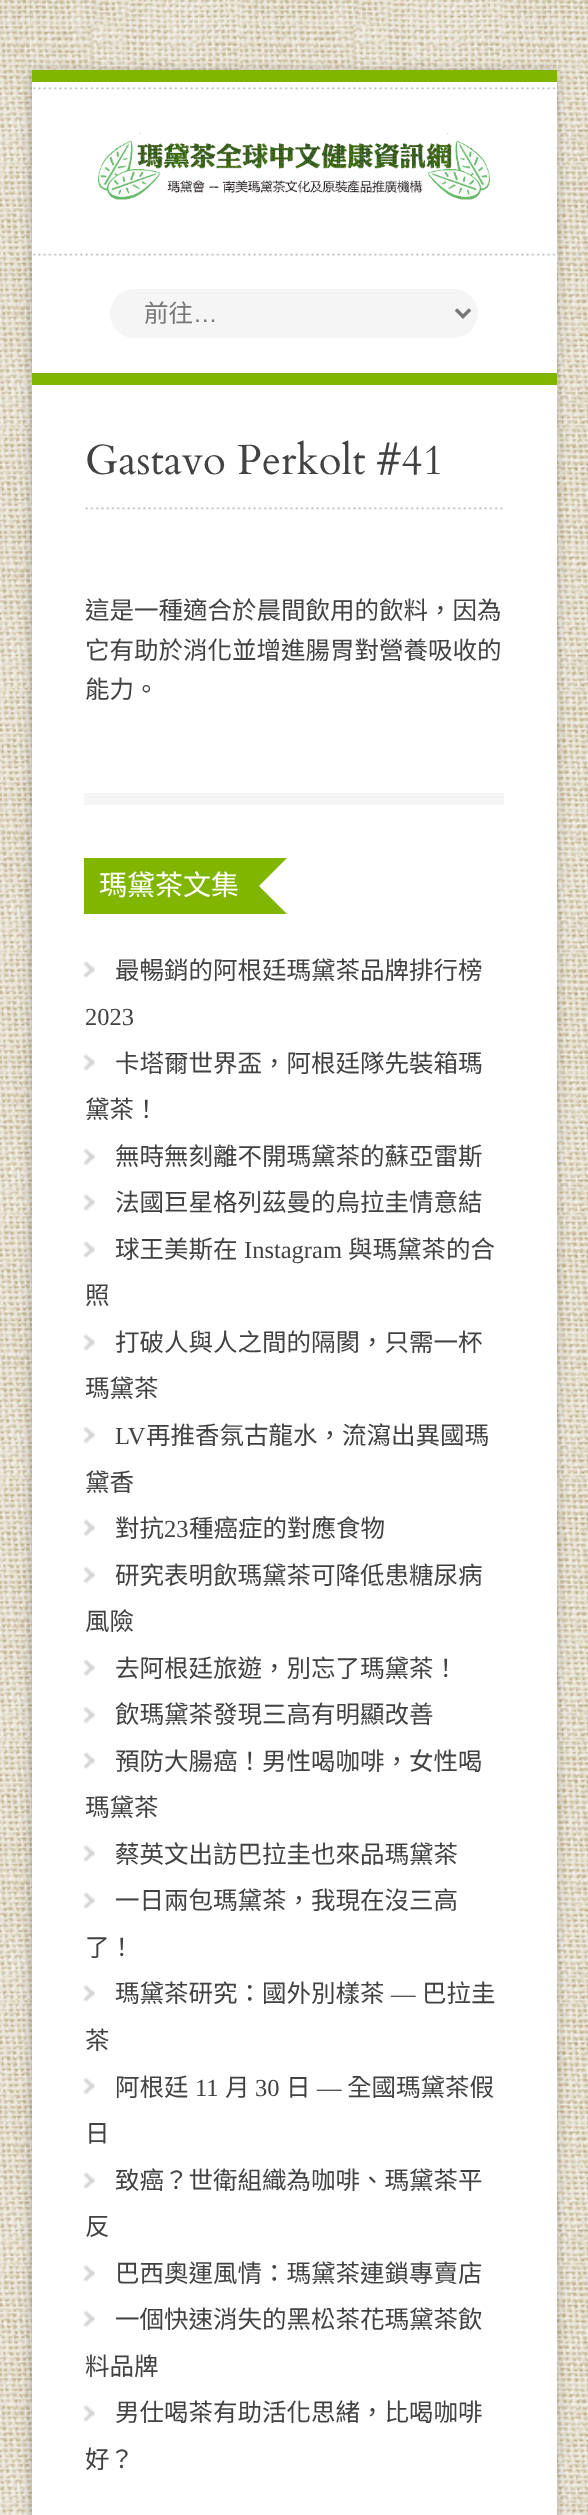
<svg xmlns="http://www.w3.org/2000/svg" width="588" height="2515">
	<rect width="100%" height="100%" fill="#FFFFFF" />
	<image x="0" y="0" width="588" height="2515" href="assets/img1.png" />
	<rect x="30" y="70" width="528" height="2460" fill="#000000" fill-opacity="0.2" filter="blur(5px)" />
	<rect x="32" y="82" width="525" height="2433" fill="#FFFFFF" />
	<rect x="32" y="70" width="525" height="12" fill="#80B600" />
	<image x="33" y="87" width="523" height="3" href="assets/img2.png" />
	<image x="98" y="133" width="392" height="67" href="assets/img3.png" />
	<image x="33" y="253" width="523" height="3" href="assets/img4.png" />
	<rect x="32" y="373" width="525" height="12" fill="#80B600" />
	<rect x="110" y="289" width="368" height="49" rx="24.5" fill="#F5F5F5" />
	<path d="M456 309.5L463 316.5L470 309.5" fill="none" stroke="#777777" stroke-width="3.5" />
	<text x="144" y="322" font-family="Noto Sans CJK TC" font-size="24.5" fill="#777777">前往</text>
	<text x="193" y="322" font-family="Liberation Sans" font-size="24.5" fill="#777777">…</text>
	<image x="85" y="507" width="418" height="3" href="assets/img5.png" />
	<text x="85" y="474" font-family="Cardo" font-size="42" fill="#424242">Gastavo Perkolt #41</text>
	<g font-family="Noto Sans CJK TC" font-size="24.5" fill="#424242">
		<text x="85" y="619">這是一種適合於晨間飲用的飲料，因為</text>
		<text x="85" y="659">它有助於消化並增進腸胃對營養吸收的</text>
		<text x="85" y="698">能力。</text>
	</g>
	<rect x="84" y="793" width="420" height="12" fill="#F5F5F5" />
	<rect x="84" y="858" width="173" height="56" fill="#80B600" />
	<text x="99" y="895" font-family="Noto Sans CJK TC" font-size="28" fill="#FFFFFF">瑪黛茶文集</text>
	<path d="M229 858H287L259 886H257ZM287 914H229L257 886H259Z" fill="#80B600" />
	<image x="84" y="961" width="11" height="17" href="assets/img6.png" />
	<text x="115" y="979" font-family="Noto Sans CJK TC" font-size="24.5" fill="#424242">最暢銷的阿根廷瑪黛茶品牌排行榜</text>
	<text x="85" y="1025" font-family="Liberation Serif" font-size="24.5" fill="#424242">2023</text>
	<image x="84" y="1053" width="11" height="18" href="assets/img7.png" />
	<g font-family="Noto Sans CJK TC" font-size="24.5" fill="#424242">
		<text x="115" y="1072">卡塔爾世界盃，阿根廷隊先裝箱瑪</text>
		<text x="85" y="1118">黛茶！</text>
	</g>
	<image x="84" y="1148" width="11" height="18" href="assets/img8.png" />
	<text x="115" y="1165" font-family="Noto Sans CJK TC" font-size="24.5" fill="#424242">無時無刻離不開瑪黛茶的蘇亞雷斯</text>
	<image x="84" y="1193" width="11" height="18" href="assets/img7.png" />
	<text x="115" y="1211" font-family="Noto Sans CJK TC" font-size="24.5" fill="#424242">法國巨星格列茲曼的烏拉圭情意結</text>
	<image x="84" y="1241" width="11" height="17" href="assets/img6.png" />
	<text x="115" y="1258" font-family="Noto Sans CJK TC" font-size="24.5" fill="#424242">球王美斯在</text>
	<text x="244" y="1258" font-family="Liberation Serif" font-size="24.5" fill="#424242">Instagram</text>
	<g font-family="Noto Sans CJK TC" font-size="24.5" fill="#424242">
		<text x="348" y="1258">與瑪黛茶的合</text>
		<text x="85" y="1304">照</text>
	</g>
	<image x="84" y="1333" width="11" height="18" href="assets/img7.png" />
	<g font-family="Noto Sans CJK TC" font-size="24.5" fill="#424242">
		<text x="115" y="1351">打破人與人之間的隔閡，只需一杯</text>
		<text x="85" y="1397">瑪黛茶</text>
	</g>
	<image x="84" y="1426" width="11" height="18" href="assets/img9.png" />
	<text x="115" y="1444" font-family="Liberation Serif" font-size="24.5" fill="#424242">LV</text>
	<g font-family="Noto Sans CJK TC" font-size="24.5" fill="#424242">
		<text x="146" y="1444">再推香氛古龍水，流瀉出異國瑪</text>
		<text x="85" y="1491">黛香</text>
	</g>
	<image x="84" y="1519" width="11" height="18" href="assets/img8.png" />
	<text x="115" y="1537" font-family="Noto Sans CJK TC" font-size="24.5" fill="#424242">對抗</text>
	<text x="164" y="1537" font-family="Liberation Serif" font-size="24.5" fill="#424242">23</text>
	<text x="189" y="1537" font-family="Noto Sans CJK TC" font-size="24.5" fill="#424242">種癌症的對應食物</text>
	<image x="84" y="1566" width="11" height="18" href="assets/img9.png" />
	<g font-family="Noto Sans CJK TC" font-size="24.5" fill="#424242">
		<text x="115" y="1584">研究表明飲瑪黛茶可降低患糖尿病</text>
		<text x="85" y="1630">風險</text>
	</g>
	<image x="84" y="1659" width="11" height="18" href="assets/img8.png" />
	<text x="115" y="1677" font-family="Noto Sans CJK TC" font-size="24.5" fill="#424242">去阿根廷旅遊，別忘了瑪黛茶！</text>
	<image x="84" y="1706" width="11" height="18" href="assets/img9.png" />
	<text x="115" y="1723" font-family="Noto Sans CJK TC" font-size="24.5" fill="#424242">飲瑪黛茶發現三高有明顯改善</text>
	<image x="84" y="1752" width="11" height="17" href="assets/img6.png" />
	<g font-family="Noto Sans CJK TC" font-size="24.5" fill="#424242">
		<text x="115" y="1770">預防大腸癌！男性喝咖啡，女性喝</text>
		<text x="85" y="1816">瑪黛茶</text>
	</g>
	<image x="84" y="1844" width="11" height="18" href="assets/img7.png" />
	<text x="115" y="1863" font-family="Noto Sans CJK TC" font-size="24.5" fill="#424242">蔡英文出訪巴拉圭也來品瑪黛茶</text>
	<image x="84" y="1892" width="11" height="17" href="assets/img6.png" />
	<g font-family="Noto Sans CJK TC" font-size="24.5" fill="#424242">
		<text x="115" y="1909">一日兩包瑪黛茶，我現在沒三高</text>
		<text x="85" y="1956">了！</text>
	</g>
	<image x="84" y="1984" width="11" height="18" href="assets/img7.png" />
	<text x="115" y="2002" font-family="Noto Sans CJK TC" font-size="24.5" fill="#424242">瑪黛茶研究：國外別樣茶</text>
	<text x="391" y="2002" font-family="Liberation Serif" font-size="24.5" fill="#424242">—</text>
	<g font-family="Noto Sans CJK TC" font-size="24.5" fill="#424242">
		<text x="422" y="2002">巴拉圭</text>
		<text x="85" y="2049">茶</text>
	</g>
	<image x="84" y="2077" width="11" height="18" href="assets/img9.png" />
	<text x="115" y="2096" font-family="Noto Sans CJK TC" font-size="24.5" fill="#424242">阿根廷</text>
	<text x="195" y="2096" font-family="Liberation Serif" font-size="24.5" fill="#424242">11</text>
	<text x="225" y="2096" font-family="Noto Sans CJK TC" font-size="24.5" fill="#424242">月</text>
	<text x="255" y="2096" font-family="Liberation Serif" font-size="24.5" fill="#424242">30</text>
	<text x="286" y="2096" font-family="Noto Sans CJK TC" font-size="24.5" fill="#424242">日</text>
	<text x="317" y="2096" font-family="Liberation Serif" font-size="24.5" fill="#424242">—</text>
	<g font-family="Noto Sans CJK TC" font-size="24.5" fill="#424242">
		<text x="347" y="2096">全國瑪黛茶假</text>
		<text x="85" y="2142">日</text>
	</g>
	<image x="84" y="2172" width="11" height="17" href="assets/img6.png" />
	<g font-family="Noto Sans CJK TC" font-size="24.5" fill="#424242">
		<text x="115" y="2189">致癌？世衛組織為咖啡、瑪黛茶平</text>
		<text x="85" y="2235">反</text>
	</g>
	<image x="84" y="2264" width="11" height="18" href="assets/img7.png" />
	<text x="115" y="2282" font-family="Noto Sans CJK TC" font-size="24.5" fill="#424242">巴西奧運風情：瑪黛茶連鎖專賣店</text>
	<image x="84" y="2310" width="11" height="18" href="assets/img8.png" />
	<g font-family="Noto Sans CJK TC" font-size="24.5" fill="#424242">
		<text x="115" y="2328">一個快速消失的黑松茶花瑪黛茶飲</text>
		<text x="85" y="2375">料品牌</text>
	</g>
	<image x="84" y="2404" width="11" height="18" href="assets/img7.png" />
	<g font-family="Noto Sans CJK TC" font-size="24.5" fill="#424242">
		<text x="115" y="2421">男仕喝茶有助活化思緒，比喝咖啡</text>
		<text x="85" y="2468">好？</text>
	</g>
</svg>
